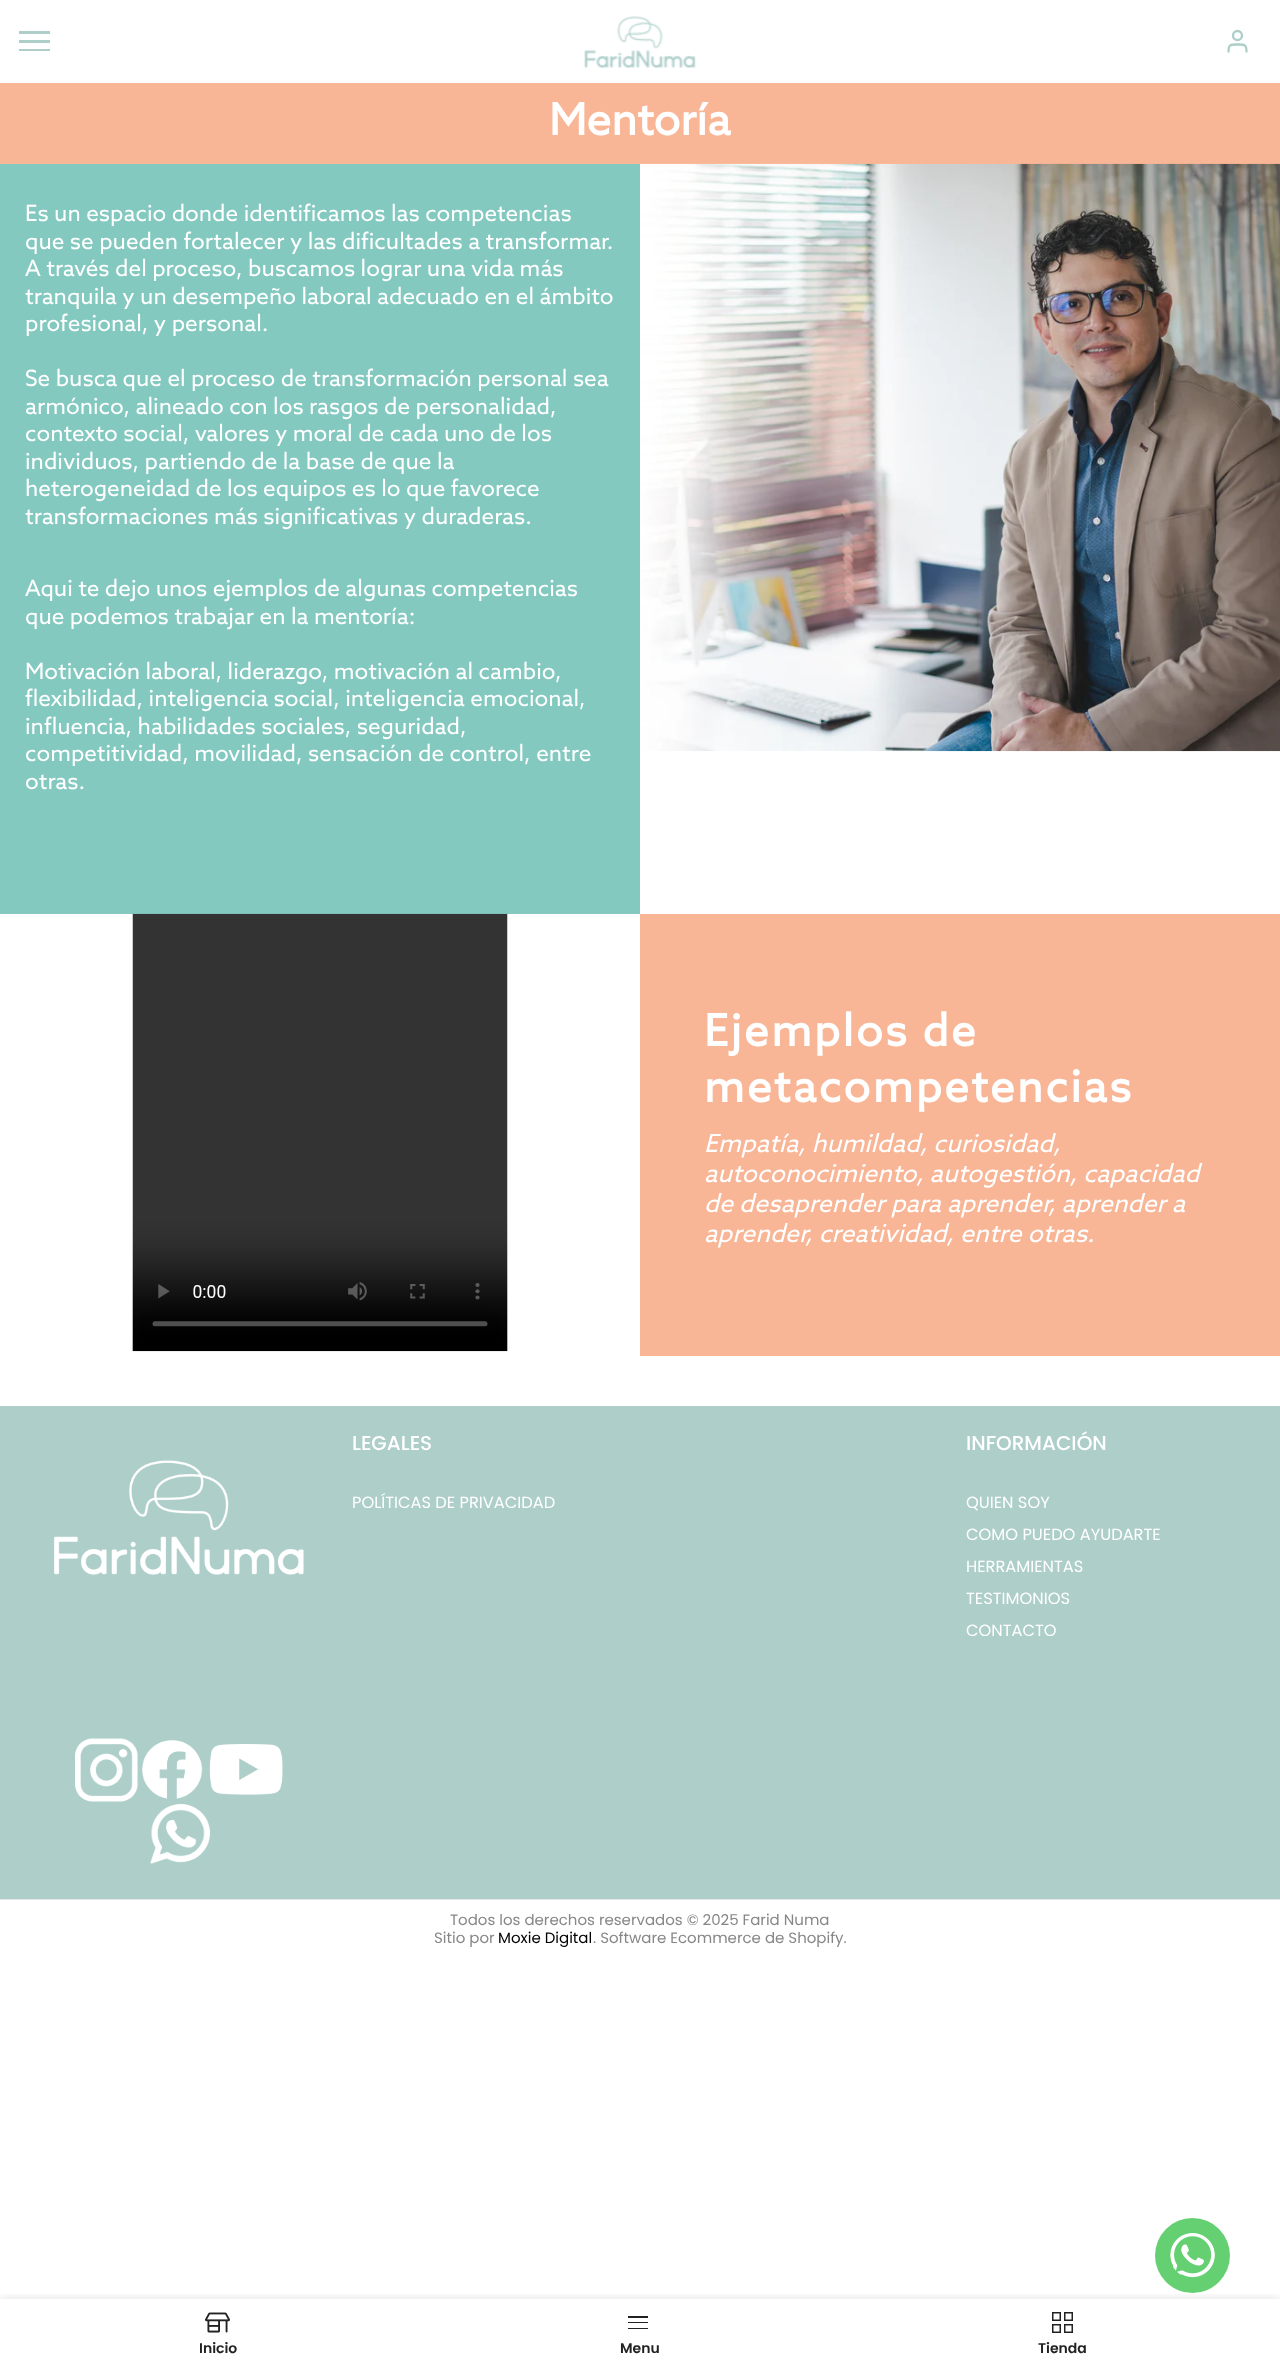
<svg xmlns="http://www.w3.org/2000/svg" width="1280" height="2367">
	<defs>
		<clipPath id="clip1"><rect x="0" y="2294" width="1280" height="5" /></clipPath>
	</defs>
	<rect width="100%" height="100%" fill="#FFFFFF" />
	<rect x="19" y="31" width="31" height="3" fill="#ADCEC9" />
	<rect x="19" y="40" width="31" height="3" fill="#ADCEC9" />
	<rect x="19" y="49" width="31" height="2" fill="#ADCEC9" />
	<image x="584" y="16" width="112" height="52" href="assets/img1.png" />
	<circle cx="1237.5" cy="35.5" r="4.5" fill="none" stroke="#ADCEC9" stroke-width="2.3" />
	<path d="M1246.5 51.5C1246.5 44 1244 44.5 1237.5 44.5C1231 44.5 1228.5 44 1228.5 51.5" fill="none" stroke="#ADCEC9" stroke-width="2.3" stroke-linecap="round" stroke-linejoin="round" />
	<rect x="0" y="83" width="1280" height="81" fill="#F9B697" />
	<text x="549" y="135" font-family="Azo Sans" font-size="43.75" font-weight="700" fill="#FFFFFF">Mentoría</text>
	<rect x="0" y="164" width="640" height="750" fill="#83C9C0" />
	<g font-family="Azo Sans" font-size="22.5" fill="#FFFFFF">
		<text x="25" y="221">Es un espacio donde identificamos las competencias</text>
		<text x="25" y="249">que se pueden fortalecer y las dificultades a transformar.</text>
		<text x="25" y="276">A través del proceso, buscamos lograr una vida más</text>
		<text x="25" y="304">tranquila y un desempeño laboral adecuado en el ámbito</text>
		<text x="25" y="331">profesional, y personal.</text>
		<text x="25" y="386">Se busca que el proceso de transformación personal sea</text>
		<text x="25" y="414">armónico, alineado con los rasgos de personalidad,</text>
		<text x="25" y="441">contexto social, valores y moral de cada uno de los</text>
		<text x="25" y="469">individuos, partiendo de la base de que la</text>
		<text x="25" y="496">heterogeneidad de los equipos es lo que favorece</text>
		<text x="25" y="524">transformaciones más significativas y duraderas.</text>
		<text x="25" y="596">Aqui te dejo unos ejemplos de algunas competencias</text>
		<text x="25" y="624">que podemos trabajar en la mentoría:</text>
		<text x="25" y="679">Motivación laboral, liderazgo, motivación al cambio,</text>
		<text x="25" y="706">flexibilidad, inteligencia social, inteligencia emocional,</text>
		<text x="25" y="734">influencia, habilidades sociales, seguridad,</text>
		<text x="25" y="761">competitividad, movilidad, sensación de control, entre</text>
		<text x="25" y="789">otras.</text>
	</g>
	<image x="640" y="163" width="640" height="589" href="assets/img2.png" />
	<image x="132" y="913" width="376" height="439" href="assets/img3.png" />
	<rect x="640" y="914" width="640" height="442" fill="#F9B697" />
	<g font-family="Azo Sans" font-size="43.75" font-weight="700" letter-spacing="2.5" fill="#FFFFFF">
		<text x="704" y="1046">Ejemplos de</text>
		<text x="704" y="1102">metacompetencias</text>
	</g>
	<g font-family="Azo Sans" font-size="25" font-style="italic" fill="#FFFFFF">
		<text x="704" y="1152">Empatía, humildad, curiosidad,</text>
		<text x="704" y="1182">autoconocimiento, autogestión, capacidad</text>
		<text x="704" y="1212">de desaprender para aprender, aprender a</text>
		<text x="704" y="1242">aprender, creatividad, entre otras.</text>
	</g>
	<rect x="0" y="1406" width="1280" height="493" fill="#ADCEC9" />
	<image x="54" y="1460" width="250" height="115" href="assets/img4.png" />
	<text x="352" y="1450" font-family="Poppins" font-size="20" font-weight="500" fill="#FFFFFF">LEGALES</text>
	<text x="352" y="1508" font-family="Poppins" font-size="16.25" fill="#FFFFFF">POLÍTICAS DE PRIVACIDAD</text>
	<text x="966" y="1450" font-family="Poppins" font-size="20" font-weight="500" fill="#FFFFFF">INFORMACIÓN</text>
	<g font-family="Poppins" font-size="16.25" fill="#FFFFFF">
		<text x="966" y="1508">QUIEN SOY</text>
		<text x="966" y="1540">COMO PUEDO AYUDARTE</text>
		<text x="966" y="1572">HERRAMIENTAS</text>
		<text x="966" y="1604">TESTIMONIOS</text>
		<text x="966" y="1636">CONTACTO</text>
	</g>
	<image x="75" y="1738" width="63" height="64" href="assets/img5.png" />
	<image x="142" y="1740" width="61" height="59" href="assets/img6.png" />
	<image x="209" y="1744" width="74" height="51" href="assets/img7.png" />
	<image x="150" y="1803" width="60" height="61" href="assets/img8.png" />
	<rect x="0" y="1899" width="1280" height="1" fill="#E6E6E6" />
	<g font-family="Poppins" font-size="15" fill="#878787">
		<text x="450" y="1925">Todos los derechos reservados © 2025 Farid Numa</text>
		<text x="434" y="1943">Sitio por</text>
	</g>
	<text x="498" y="1943" font-family="Poppins" font-size="15" fill="#010101">Moxie Digital</text>
	<text x="593" y="1943" font-family="Poppins" font-size="15" fill="#878787">. Software Ecommerce de Shopify.</text>
	<g clip-path="url(#clip1)">
		<rect x="0" y="2299" width="1280" height="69" fill="#000000" fill-opacity="0.12" filter="blur(5.5px)" />
	</g>
	<circle cx="1192.5" cy="2255.5" r="37.5" fill="#65D071" />
	<image x="1170" y="2233" width="45" height="45" href="assets/img9.png" />
	<image x="205" y="2312" width="25" height="21" href="assets/img10.png" />
	<text x="199" y="2353" font-family="Poppins" font-size="14" font-weight="600" fill="#222222">Inicio</text>
	<rect x="628" y="2316" width="20" height="2" fill="#222222" />
	<rect x="628" y="2322" width="20" height="1" fill="#222222" />
	<rect x="628" y="2328" width="20" height="1" fill="#222222" />
	<text x="620" y="2353" font-family="Poppins" font-size="14" font-weight="600" fill="#222222">Menu</text>
	<rect x="1052.75" y="2312.75" width="7.5" height="7.5" fill="none" stroke="#222222" stroke-width="1.5" />
	<rect x="1064.75" y="2312.75" width="7.5" height="7.5" fill="none" stroke="#222222" stroke-width="1.5" />
	<rect x="1052.75" y="2324.75" width="7.5" height="7.5" fill="none" stroke="#222222" stroke-width="1.5" />
	<rect x="1064.75" y="2324.75" width="7.5" height="7.5" fill="none" stroke="#222222" stroke-width="1.5" />
	<text x="1038" y="2353" font-family="Poppins" font-size="14" font-weight="600" fill="#222222">Tienda</text>
</svg>
